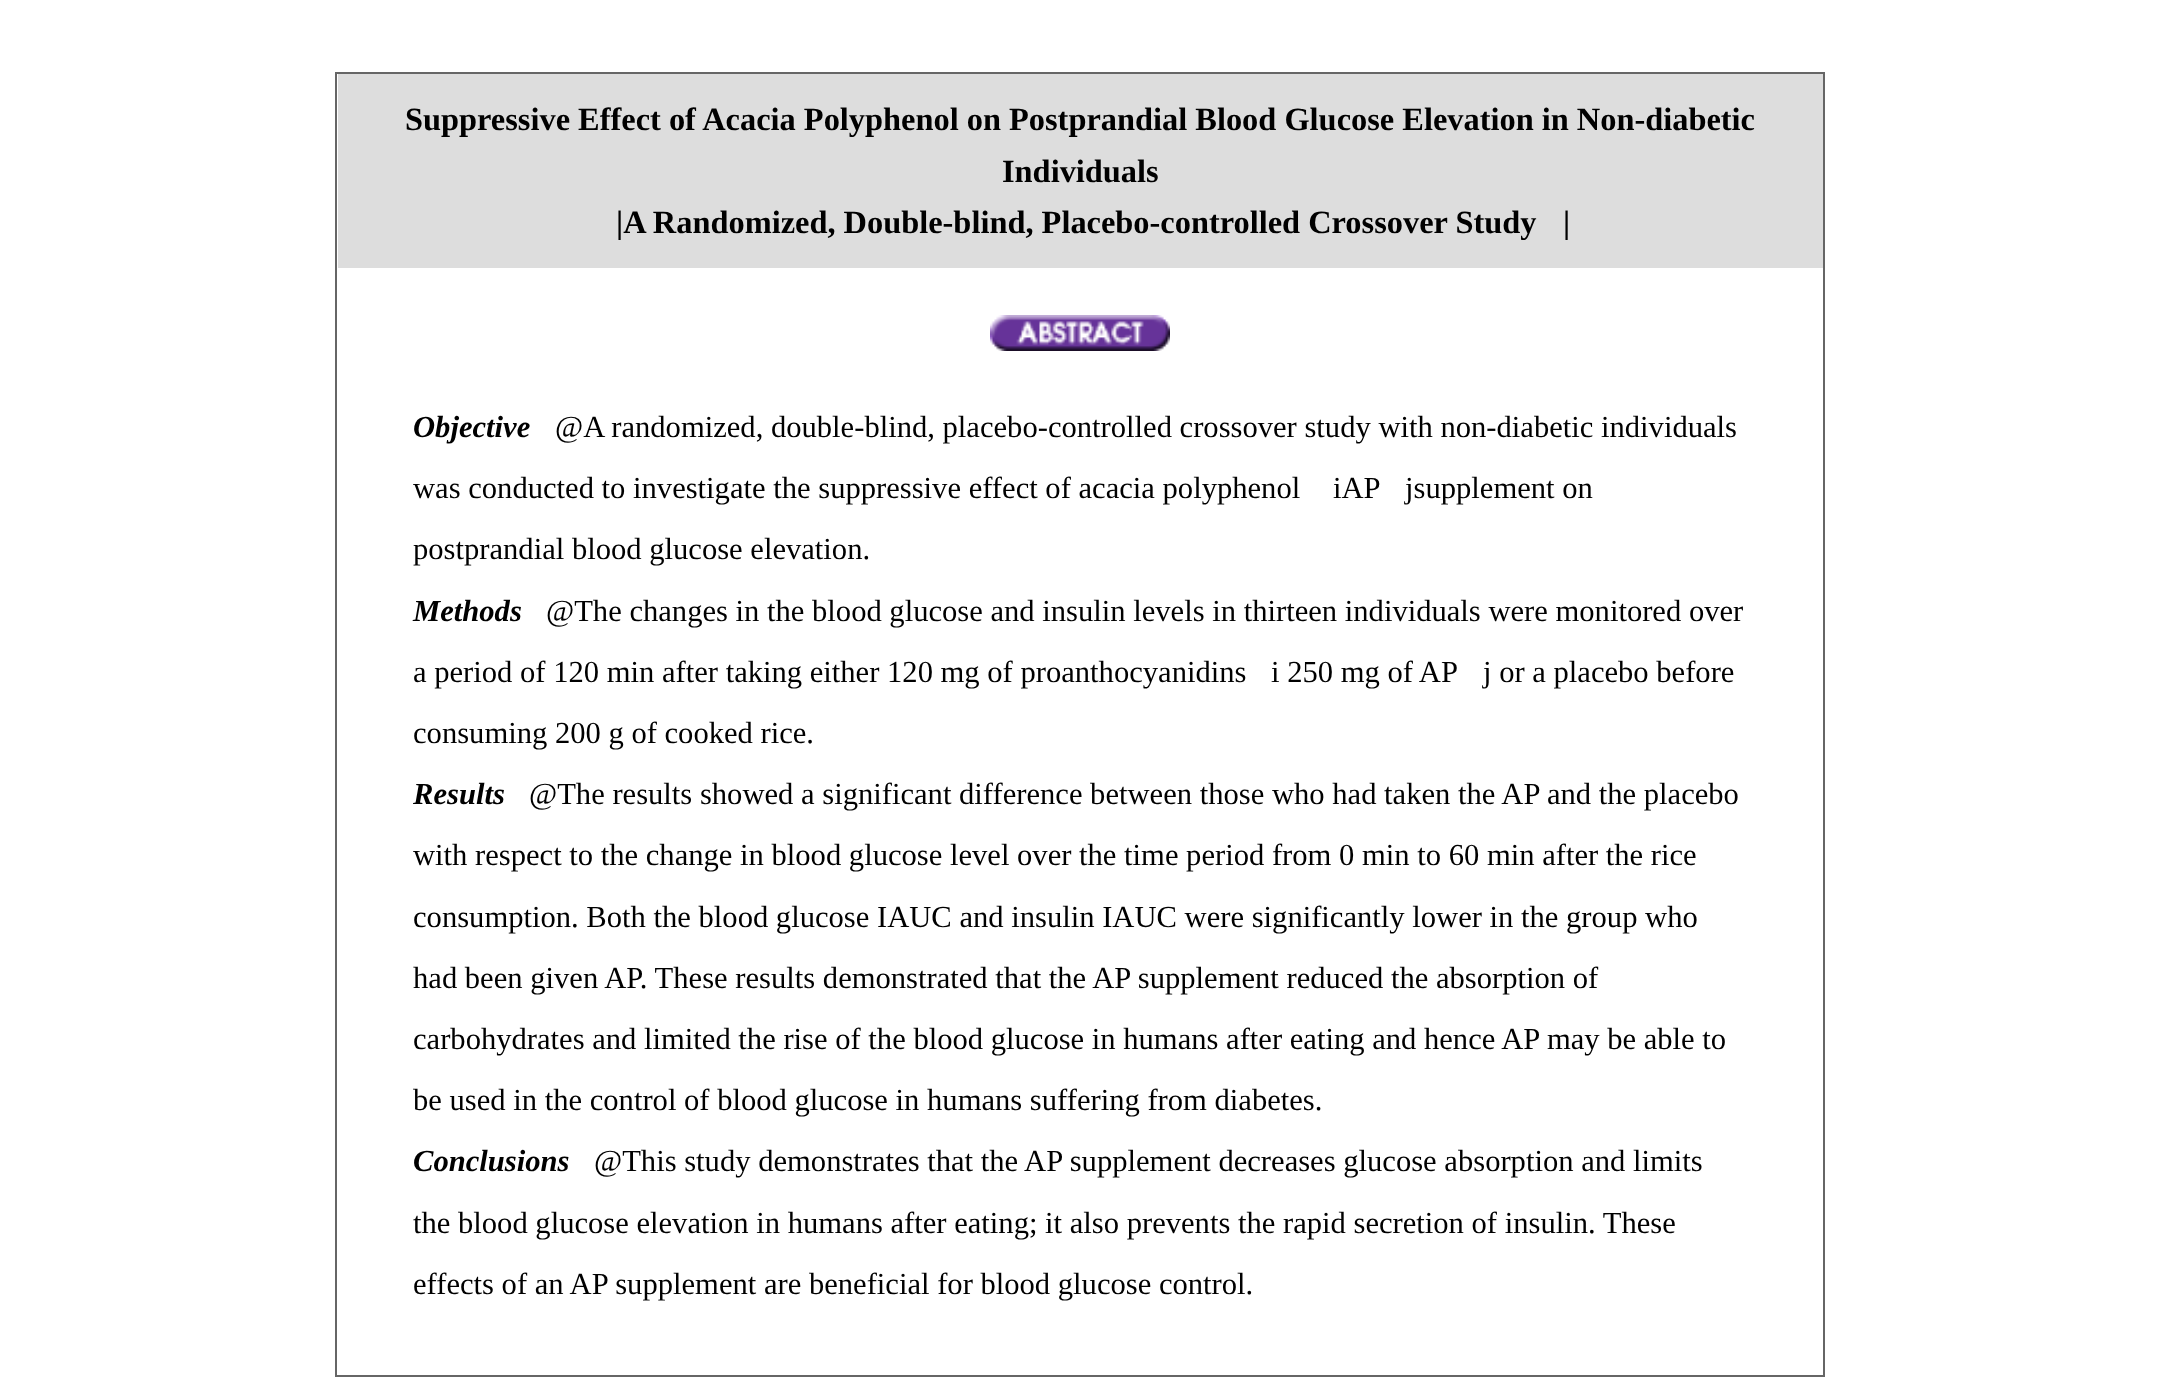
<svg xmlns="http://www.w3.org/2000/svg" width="2160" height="1395">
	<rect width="100%" height="100%" fill="#FFFFFF" />
	<rect x="336" y="73" width="1488" height="1303" fill="none" stroke="#666666" stroke-width="2" />
	<rect x="338" y="74" width="1485" height="194" fill="#DDDDDD" />
	<g font-family="Liberation Serif" font-size="32.4" font-weight="700" fill="#000000">
		<text x="405" y="130">Suppressive Effect of Acacia Polyphenol on Postprandial Blood Glucose Elevation in Non-diabetic</text>
		<text x="1002" y="182">Individuals</text>
		<text x="616" y="233">|A Randomized, Double-blind, Placebo-controlled Crossover Study</text>
		<text x="1563" y="233">|</text>
	</g>
	<image x="990" y="315" width="180" height="36" href="assets/img1.png" />
	<text x="413" y="437" font-family="Liberation Serif" font-size="30.6" font-weight="700" font-style="italic" fill="#000000">Objective</text>
	<g font-family="Liberation Serif" font-size="30.6" fill="#000000">
		<text x="555" y="437">@A randomized, double-blind, placebo-controlled crossover study with non-diabetic individuals</text>
		<text x="413" y="498">was conducted to investigate the suppressive effect of acacia polyphenol</text>
		<text x="1333" y="498">iAP</text>
		<text x="1405" y="498">jsupplement on</text>
		<text x="413" y="559">postprandial blood glucose elevation.</text>
	</g>
	<text x="413" y="621" font-family="Liberation Serif" font-size="30.6" font-weight="700" font-style="italic" fill="#000000">Methods</text>
	<g font-family="Liberation Serif" font-size="30.6" fill="#000000">
		<text x="546" y="621">@The changes in the blood glucose and insulin levels in thirteen individuals were monitored over</text>
		<text x="413" y="682">a period of 120 min after taking either 120 mg of proanthocyanidins</text>
		<text x="1271" y="682">i 250 mg of AP</text>
		<text x="1483" y="682">j or a placebo before</text>
		<text x="413" y="743">consuming 200 g of cooked rice.</text>
	</g>
	<text x="413" y="804" font-family="Liberation Serif" font-size="30.6" font-weight="700" font-style="italic" fill="#000000">Results</text>
	<g font-family="Liberation Serif" font-size="30.6" fill="#000000">
		<text x="529" y="804">@The results showed a significant difference between those who had taken the AP and the placebo</text>
		<text x="413" y="865">with respect to the change in blood glucose level over the time period from 0 min to 60 min after the rice</text>
		<text x="413" y="927">consumption. Both the blood glucose IAUC and insulin IAUC were significantly lower in the group who</text>
		<text x="413" y="988">had been given AP. These results demonstrated that the AP supplement reduced the absorption of</text>
		<text x="413" y="1049">carbohydrates and limited the rise of the blood glucose in humans after eating and hence AP may be able to</text>
		<text x="413" y="1110">be used in the control of blood glucose in humans suffering from diabetes.</text>
	</g>
	<text x="413" y="1171" font-family="Liberation Serif" font-size="30.6" font-weight="700" font-style="italic" fill="#000000">Conclusions</text>
	<g font-family="Liberation Serif" font-size="30.6" fill="#000000">
		<text x="594" y="1171">@This study demonstrates that the AP supplement decreases glucose absorption and limits</text>
		<text x="413" y="1233">the blood glucose elevation in humans after eating; it also prevents the rapid secretion of insulin. These</text>
		<text x="413" y="1294">effects of an AP supplement are beneficial for blood glucose control.</text>
	</g>
</svg>
